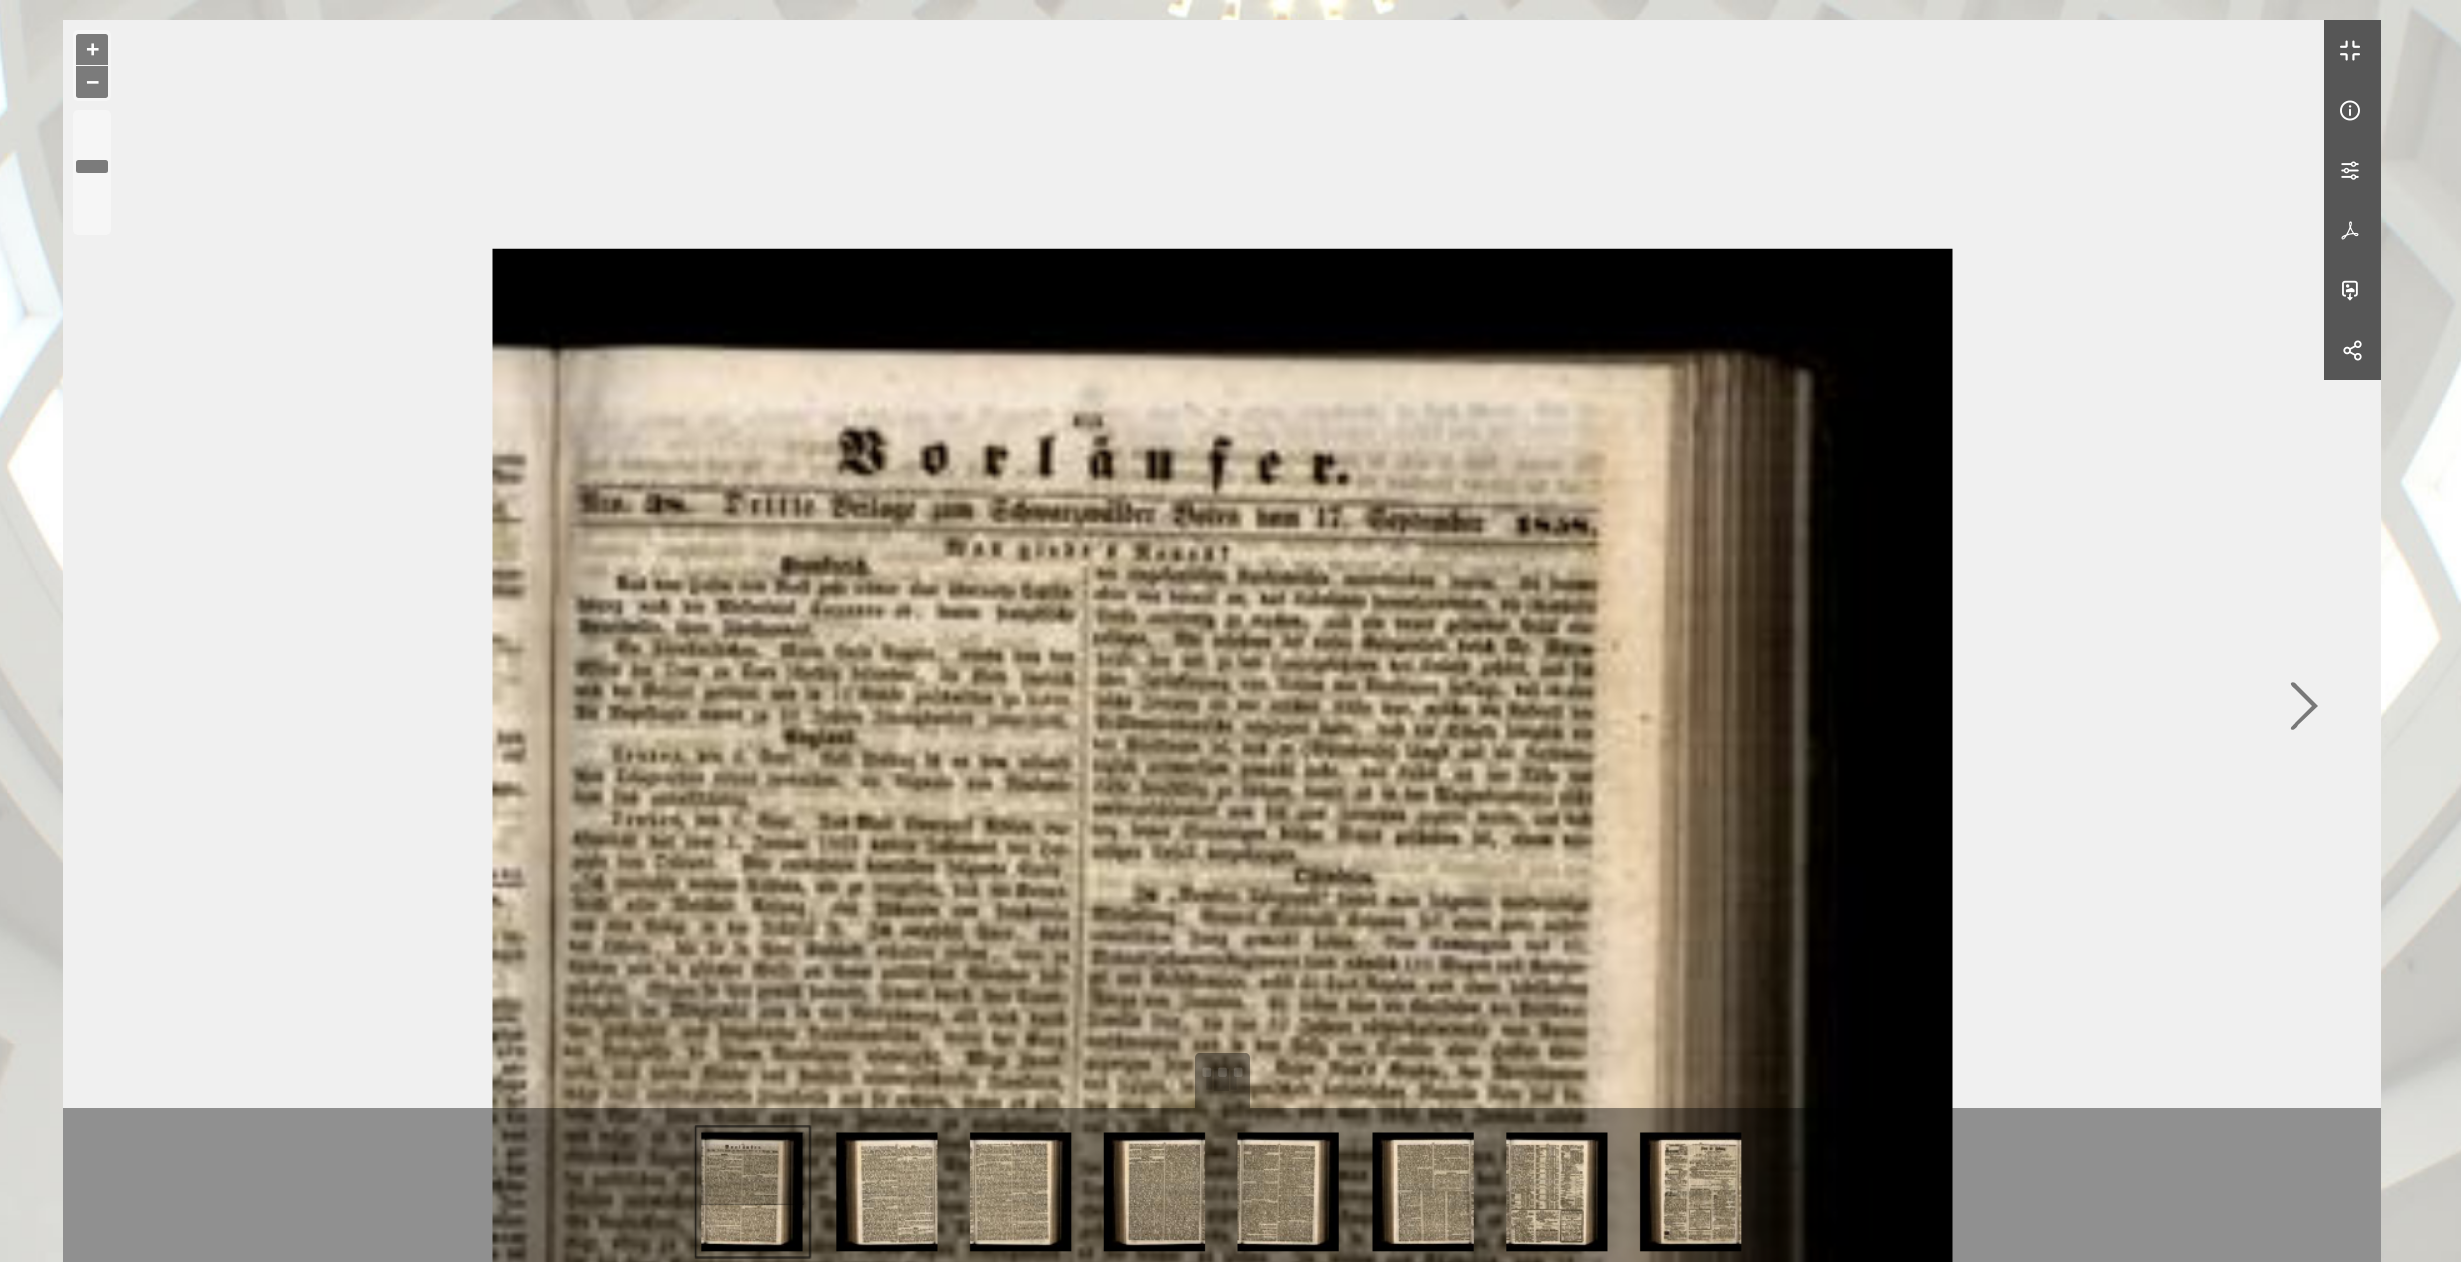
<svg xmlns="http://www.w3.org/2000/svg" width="2461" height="1262">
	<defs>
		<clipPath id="clip1"><path d="M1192 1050H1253V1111H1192ZM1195 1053H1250V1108H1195Z" clip-rule="evenodd" /></clipPath>
	</defs>
	<rect width="100%" height="100%" fill="#FFFFFF" />
	<image x="0" y="0" width="2461" height="1262" href="assets/img1.png" />
	<rect x="63" y="20" width="2318" height="1242" fill="#F0F0F0" />
	<rect x="73" y="30" width="38" height="71" rx="5" fill="#F6F6F6" />
	<path d="M78.5 34H105.5C107 34 108 35 108 36.5V65H76V36.5C76 35 77 34 78.5 34Z" fill="#7B7B7B" />
	<text x="86" y="57" font-family="Liberation Sans" font-size="23" font-weight="700" fill="#FFFFFF">+</text>
	<path d="M76 66H108V95.5C108 97 107 98 105.5 98H78.5C77 98 76 97 76 95.5Z" fill="#7B7B7B" />
	<text x="86" y="90" font-family="Liberation Sans" font-size="23" font-weight="700" fill="#FFFFFF">−</text>
	<rect x="73" y="110" width="38" height="125" rx="5" fill="#F6F6F6" />
	<rect x="76" y="160" width="32" height="13" rx="2.5" fill="#7B7B7B" />
	<image x="492" y="248" width="1461" height="1014" href="assets/img2.png" />
	<rect x="2324" y="20" width="57" height="360" fill="#565656" />
	<image x="2340" y="40" width="20" height="21" href="assets/img3.png" />
	<image x="2340" y="100" width="20" height="21" href="assets/img4.png" />
	<image x="2341" y="161" width="18" height="19" href="assets/img5.png" />
	<image x="2341" y="221" width="18" height="19" href="assets/img6.png" />
	<image x="2342" y="280" width="16" height="21" href="assets/img7.png" />
	<image x="2343" y="340" width="19" height="21" href="assets/img8.png" />
	<path d="M2318 706L2298 725C2298 726 2293 732 2291 729C2290 727 2295 724 2295 723L2312 706L2295 689C2294 688 2290 685 2291 683C2294 680 2298 686 2298 686Z" fill="#787878" />
	<rect x="63" y="1108" width="2318" height="154" fill="#000000" fill-opacity="0.4" />
	<g clip-path="url(#clip1)">
		<rect x="1195" y="1053" width="55" height="55" fill="#000000" fill-opacity="0.27" filter="blur(0.5px)" />
	</g>
	<path d="M1200 1053H1245C1248 1053 1250 1055 1250 1058V1108H1195V1058C1195 1055 1197 1053 1200 1053Z" fill="#000000" fill-opacity="0.4" />
	<image x="1206" y="1069" width="31" height="22" href="assets/img9.png" />
	<image x="1202" y="1067" width="41" height="10" href="assets/img10.png" />
	<image x="693" y="1125" width="1049" height="134" href="assets/img11.png" />
</svg>
